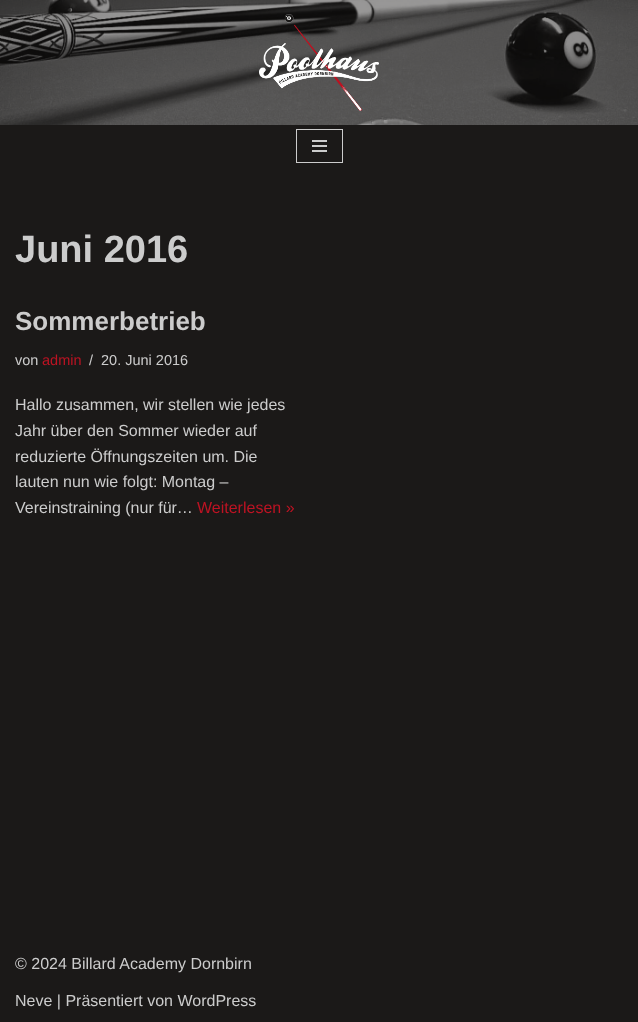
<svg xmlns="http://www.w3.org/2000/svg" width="638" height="1022">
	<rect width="100%" height="100%" fill="#1B1918" />
	<image x="0" y="0" width="638" height="125" href="assets/img1.png" />
	<image x="259" y="14" width="120" height="97" href="assets/img2.png" />
	<rect x="296.5" y="129.5" width="46" height="33" fill="none" stroke="#CCCCCC" />
	<rect x="312" y="140" width="15" height="2" fill="#CCCCCC" />
	<rect x="312" y="145" width="15" height="2" fill="#CCCCCC" />
	<rect x="312" y="150" width="15" height="2" fill="#CCCCCC" />
	<text x="15" y="262" font-family="Liberation Sans" font-size="38" font-weight="700" fill="#CCCCCC">Juni 2016</text>
	<text x="15" y="330" font-family="Liberation Sans" font-size="26" font-weight="700" fill="#CCCCCC">Sommerbetrieb</text>
	<text x="15" y="365" font-family="Liberation Sans" font-size="14.5" fill="#CCCCCC">von</text>
	<text x="42" y="365" font-family="Liberation Sans" font-size="14.5" fill="#BD1323">admin</text>
	<g font-family="Liberation Sans" font-size="14.5" fill="#CCCCCC">
		<text x="89" y="365">/</text>
		<text x="101" y="365">20. Juni 2016</text>
	</g>
	<g font-family="Liberation Sans" font-size="16" fill="#CCCCCC">
		<text x="15" y="410">Hallo zusammen, wir stellen wie jedes</text>
		<text x="15" y="436">Jahr über den Sommer wieder auf</text>
		<text x="15" y="462">reduzierte Öffnungszeiten um. Die</text>
		<text x="15" y="487">lauten nun wie folgt: Montag –</text>
		<text x="15" y="513">Vereinstraining (nur für…</text>
	</g>
	<text x="197" y="513" font-family="Liberation Sans" font-size="16" fill="#BD1323">Weiterlesen »</text>
	<g font-family="Liberation Sans" font-size="16" fill="#CCCCCC">
		<text x="15" y="969">© 2024 Billard Academy Dornbirn</text>
		<text x="15" y="1006">Neve | Präsentiert von WordPress</text>
	</g>
</svg>
